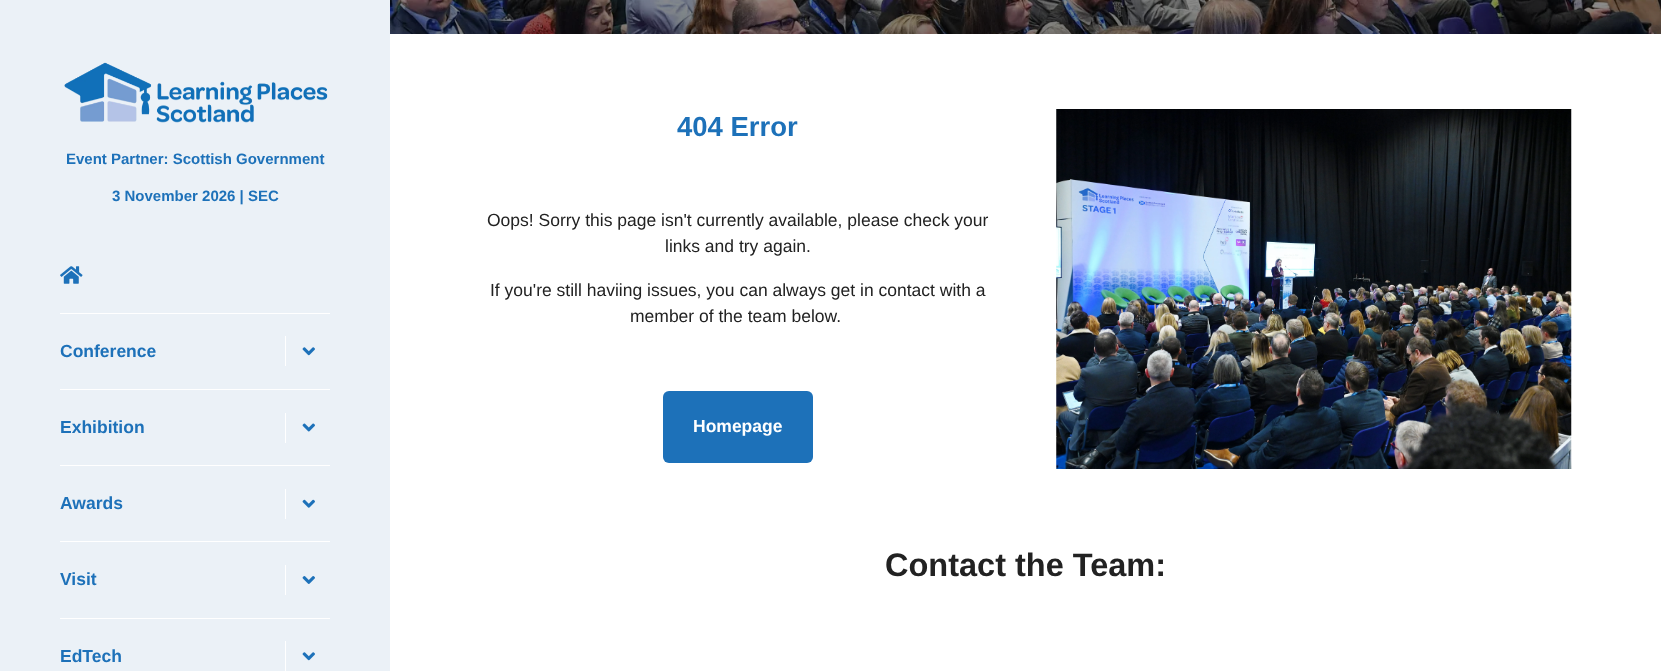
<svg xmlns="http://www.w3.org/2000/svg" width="1661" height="671">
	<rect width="100%" height="100%" fill="#FFFFFF" />
	<image x="390" y="0" width="1271" height="34" href="assets/img1.png" />
	<rect x="0" y="0" width="390" height="671" fill="#EBF1F7" />
	<image x="64" y="62" width="264" height="61" href="assets/img2.png" />
	<g font-family="Liberation Sans" font-size="15" font-weight="700" fill="#1D71B9">
		<text x="66" y="164">Event Partner: Scottish Government</text>
		<text x="112" y="201">3 November 2026 | SEC</text>
	</g>
	<rect x="60" y="313" width="270" height="1" fill="#FFFFFF" />
	<image x="60" y="266" width="23" height="18" href="assets/img3.png" />
	<rect x="60" y="389" width="270" height="1" fill="#FFFFFF" />
	<text x="60" y="357" font-family="Liberation Sans" font-size="17.5" font-weight="700" fill="#1D71B9">Conference</text>
	<rect x="285" y="336" width="1" height="30" fill="#FFFFFF" />
	<image x="302" y="347" width="13" height="9" href="assets/img4.png" />
	<rect x="60" y="465" width="270" height="1" fill="#FFFFFF" />
	<text x="60" y="433" font-family="Liberation Sans" font-size="17.5" font-weight="700" fill="#1D71B9">Exhibition</text>
	<rect x="285" y="413" width="1" height="30" fill="#FFFFFF" />
	<image x="302" y="423" width="13" height="9" href="assets/img5.png" />
	<rect x="60" y="541" width="270" height="1" fill="#FFFFFF" />
	<text x="60" y="509" font-family="Liberation Sans" font-size="17.5" font-weight="700" fill="#1D71B9">Awards</text>
	<rect x="285" y="489" width="1" height="30" fill="#FFFFFF" />
	<image x="302" y="499" width="13" height="9" href="assets/img6.png" />
	<rect x="60" y="618" width="270" height="1" fill="#FFFFFF" />
	<text x="60" y="585" font-family="Liberation Sans" font-size="17.5" font-weight="700" fill="#1D71B9">Visit</text>
	<rect x="285" y="565" width="1" height="30" fill="#FFFFFF" />
	<image x="302" y="576" width="13" height="8" href="assets/img7.png" />
	<text x="60" y="662" font-family="Liberation Sans" font-size="17.5" font-weight="700" fill="#1D71B9">EdTech</text>
	<rect x="285" y="641" width="1" height="30" fill="#FFFFFF" />
	<image x="302" y="652" width="13" height="9" href="assets/img4.png" />
	<text x="677" y="136" font-family="Liberation Sans" font-size="27.5" font-weight="700" fill="#1D71B9">404 Error</text>
	<g font-family="Liberation Sans" font-size="17.5" fill="#222222">
		<text x="487" y="226">Oops! Sorry this page isn't currently available, please check your</text>
		<text x="665" y="252">links and try again.</text>
		<text x="490" y="296">If you're still haviing issues, you can always get in contact with a</text>
		<text x="630" y="322">member of the team below.</text>
	</g>
	<rect x="663" y="391" width="150" height="72" rx="6" fill="#1D71B9" />
	<text x="693" y="432" font-family="Liberation Sans" font-size="17.5" font-weight="700" fill="#FFFFFF">Homepage</text>
	<image x="1056" y="109" width="516" height="360" href="assets/img8.png" />
	<text x="885" y="576" font-family="Liberation Sans" font-size="32.5" font-weight="700" fill="#222222">Contact the Team:</text>
</svg>
